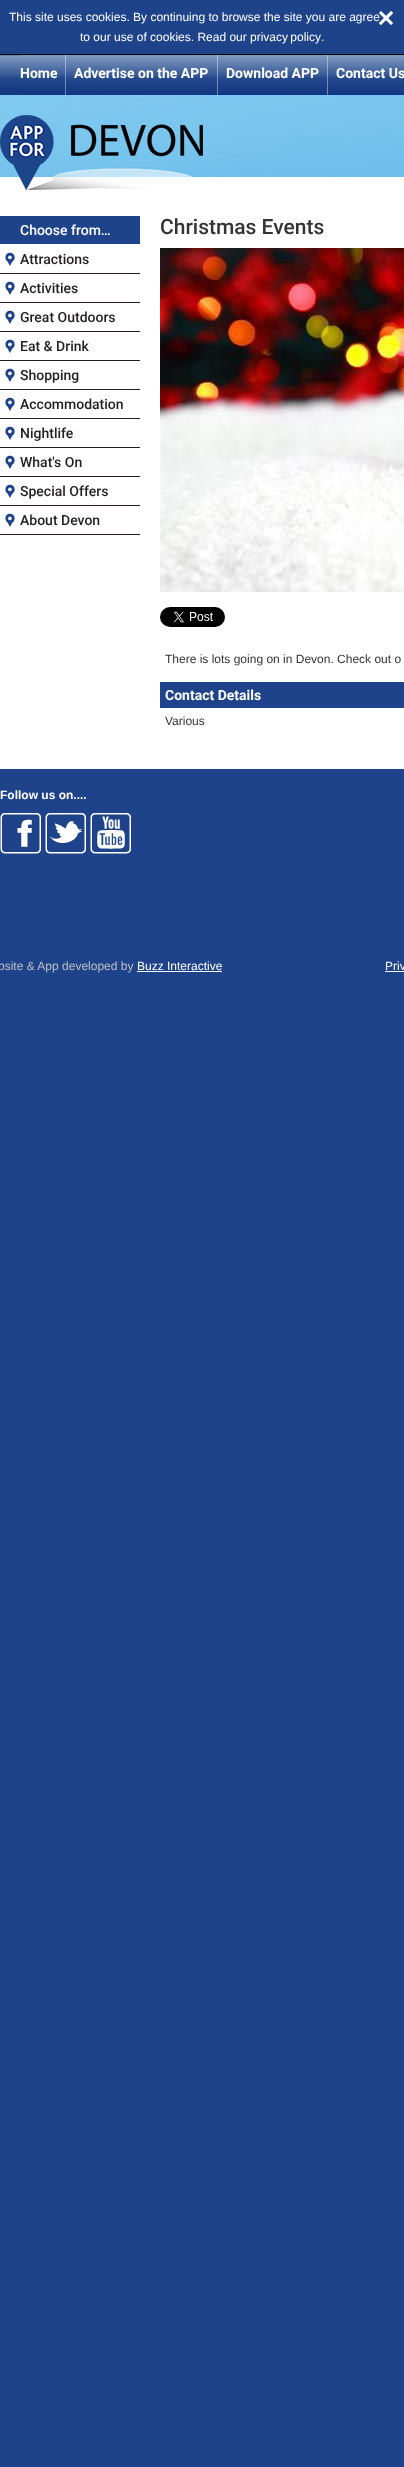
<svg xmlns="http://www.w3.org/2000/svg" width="404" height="2467">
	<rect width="100%" height="100%" fill="#1F438A" />
	<rect x="0" y="54" width="404" height="1" fill="#000000" />
	<g font-family="Liberation Sans" font-size="12" fill="#FFFFFF">
		<text x="9" y="21">This site uses cookies. By continuing to browse the site you are agree</text>
		<text x="80" y="41">to our use of cookies. Read our</text>
		<text x="250" y="41" word-spacing="-1">privacy policy</text>
		<text x="321" y="41">.</text>
	</g>
	<image x="379" y="11" width="14" height="14" href="assets/img1.png" />
	<rect x="0" y="55" width="404" height="40" fill="#163984" />
	<image x="0" y="55" width="404" height="33" href="assets/img3.png" />
	<image x="202" y="55" width="202" height="1" href="assets/img2.png" />
	<image x="20" y="55" width="384" height="40" href="assets/img4.png" />
	<rect x="65" y="55" width="1" height="40" fill="#FFFFFF" fill-opacity="0.4" />
	<text x="20" y="78" font-family="Roboto" font-size="14" font-weight="700" fill="#FFFFFF">Home</text>
	<rect x="217" y="55" width="1" height="40" fill="#FFFFFF" fill-opacity="0.4" />
	<text x="74" y="78" font-family="Roboto" font-size="14" font-weight="700" fill="#FFFFFF">Advertise on the APP</text>
	<rect x="327" y="55" width="1" height="40" fill="#FFFFFF" fill-opacity="0.4" />
	<g font-family="Roboto" font-size="14" font-weight="700" fill="#FFFFFF">
		<text x="226" y="78">Download APP</text>
		<text x="336" y="78">Contact Us</text>
	</g>
	<rect x="0" y="177" width="404" height="592" fill="#FFFFFF" />
	<image x="0" y="95" width="404" height="82" href="assets/img5.png" />
	<image x="0" y="115" width="203" height="75" href="assets/img6.png" />
	<rect x="0" y="216" width="140" height="28" fill="#1F438A" />
	<text x="20" y="235" font-family="Roboto" font-size="14" font-weight="500" fill="#FFFFFF">Choose from…</text>
	<image x="5" y="252" width="10" height="14" href="assets/img7.png" />
	<rect x="0" y="273" width="140" height="1" fill="#231F20" />
	<text x="20" y="264" font-family="Roboto" font-size="14" font-weight="500" fill="#231F20">Attractions</text>
	<image x="5" y="281" width="10" height="14" href="assets/img7.png" />
	<rect x="0" y="302" width="140" height="1" fill="#231F20" />
	<text x="20" y="293" font-family="Roboto" font-size="14" font-weight="500" fill="#231F20">Activities</text>
	<image x="5" y="310" width="10" height="14" href="assets/img7.png" />
	<rect x="0" y="331" width="140" height="1" fill="#231F20" />
	<text x="20" y="322" font-family="Roboto" font-size="14" font-weight="500" fill="#231F20">Great Outdoors</text>
	<image x="5" y="339" width="10" height="14" href="assets/img7.png" />
	<rect x="0" y="360" width="140" height="1" fill="#231F20" />
	<text x="20" y="351" font-family="Roboto" font-size="14" font-weight="500" fill="#231F20">Eat &amp; Drink</text>
	<image x="5" y="368" width="10" height="14" href="assets/img7.png" />
	<rect x="0" y="389" width="140" height="1" fill="#231F20" />
	<text x="20" y="380" font-family="Roboto" font-size="14" font-weight="500" fill="#231F20">Shopping</text>
	<image x="5" y="397" width="10" height="14" href="assets/img7.png" />
	<rect x="0" y="418" width="140" height="1" fill="#231F20" />
	<text x="20" y="409" font-family="Roboto" font-size="14" font-weight="500" fill="#231F20">Accommodation</text>
	<image x="5" y="426" width="10" height="14" href="assets/img7.png" />
	<rect x="0" y="447" width="140" height="1" fill="#231F20" />
	<text x="20" y="438" font-family="Roboto" font-size="14" font-weight="500" fill="#231F20">Nightlife</text>
	<image x="5" y="455" width="10" height="14" href="assets/img7.png" />
	<rect x="0" y="476" width="140" height="1" fill="#231F20" />
	<text x="20" y="467" font-family="Roboto" font-size="14" font-weight="500" fill="#231F20">What's On</text>
	<image x="5" y="484" width="10" height="14" href="assets/img7.png" />
	<rect x="0" y="505" width="140" height="1" fill="#231F20" />
	<text x="20" y="496" font-family="Roboto" font-size="14" font-weight="500" fill="#231F20">Special Offers</text>
	<image x="5" y="513" width="10" height="14" href="assets/img7.png" />
	<rect x="0" y="534" width="140" height="1" fill="#231F20" />
	<text x="20" y="525" font-family="Roboto" font-size="14" font-weight="500" fill="#231F20">About Devon</text>
	<text x="160" y="234" font-family="Roboto" font-size="21" font-weight="500" fill="#333333">Christmas Events</text>
	<image x="160" y="248" width="244" height="344" href="assets/img8.png" />
	<image x="160" y="607" width="65" height="20" href="assets/img9.png" />
	<text x="165" y="663" font-family="Liberation Sans" font-size="12" fill="#333333">There is lots going on in Devon. Check out o</text>
	<rect x="160" y="682" width="244" height="26" fill="#1F438A" />
	<text x="165" y="700" font-family="Roboto" font-size="14" font-weight="700" fill="#FFFFFF">Contact Details</text>
	<text x="165" y="725" font-family="Liberation Sans" font-size="12" fill="#333333">Various</text>
	<text x="0" y="799" font-family="Liberation Sans" font-size="12" font-weight="700" fill="#FFFFFF">Follow us on....</text>
	<image x="0" y="813" width="41" height="41" href="assets/img10.png" />
	<image x="45" y="813" width="41" height="41" href="assets/img11.png" />
	<image x="90" y="813" width="41" height="41" href="assets/img12.png" />
	<text x="-2" y="970" font-family="Liberation Sans" font-size="12" fill="#C0C1C4">bsite &amp; App developed by</text>
	<text x="137" y="970" font-family="Liberation Sans" font-size="12" fill="#FFFFFF">Buzz Interactive</text>
	<rect x="137" y="971" width="85" height="1" fill="#FFFFFF" />
	<text x="385" y="970" font-family="Liberation Sans" font-size="12" fill="#FFFFFF">Priv</text>
	<rect x="385" y="971" width="19" height="1" fill="#FFFFFF" />
</svg>
